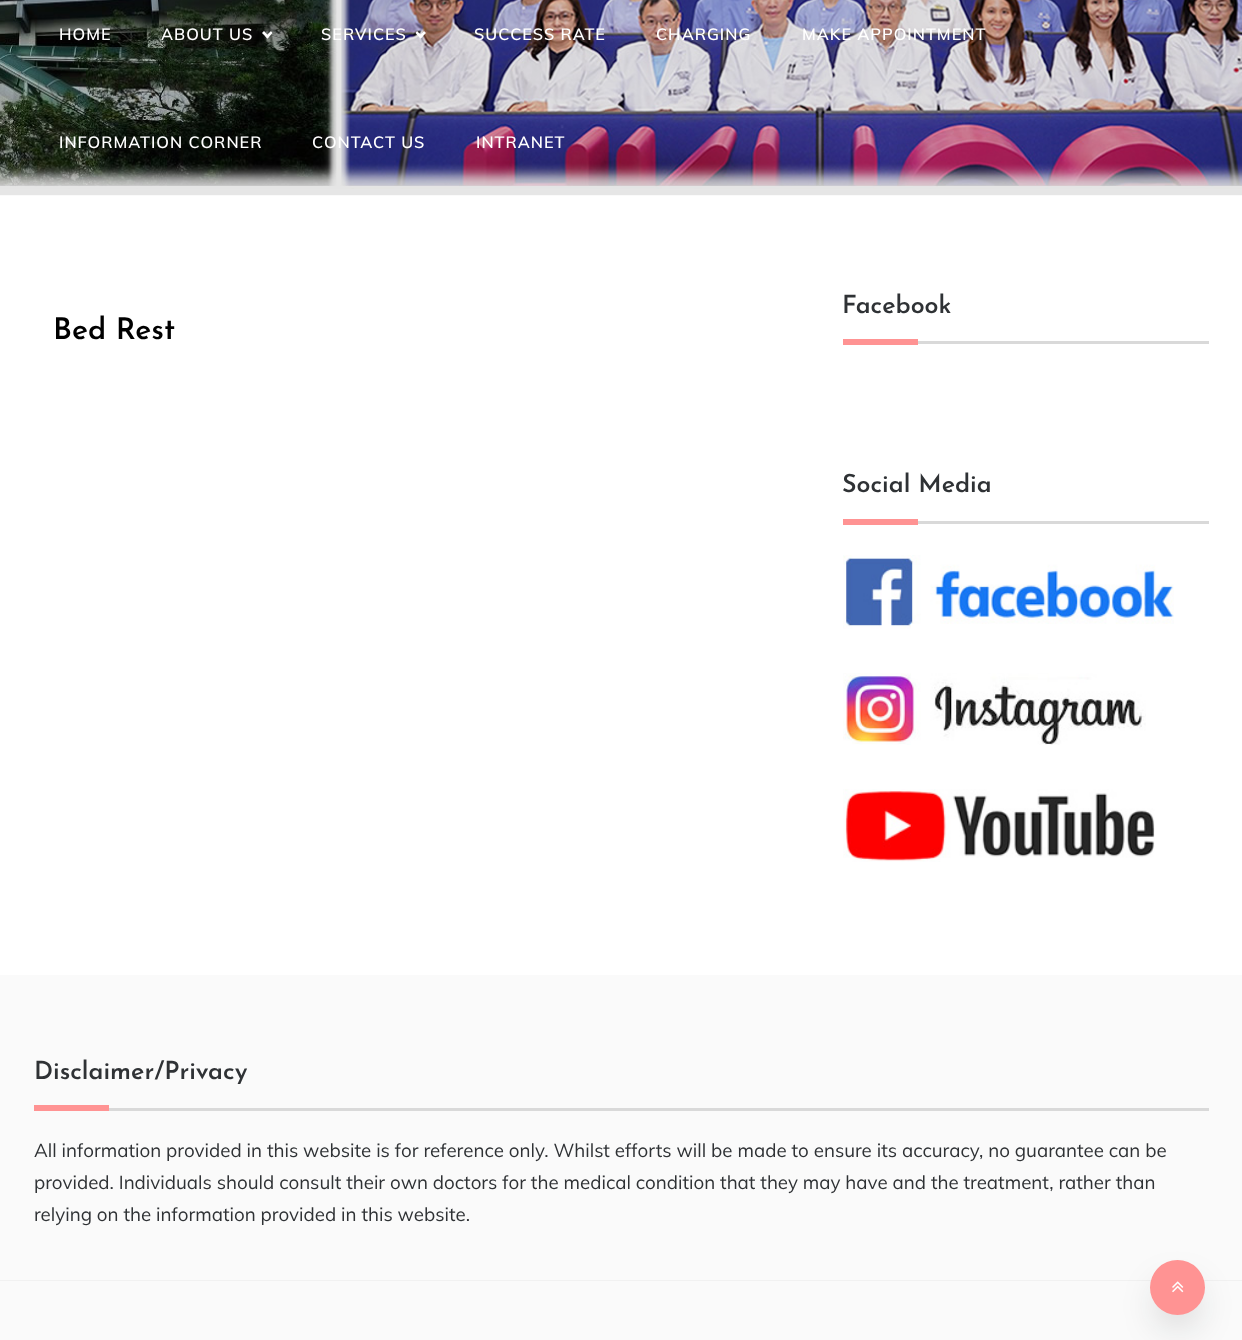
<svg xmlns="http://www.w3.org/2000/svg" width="1242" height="1340">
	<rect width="100%" height="100%" fill="#FFFFFF" />
	<rect x="0" y="189" width="1242" height="6" fill="#E6E6E6" />
	<image x="0" y="0" width="1242" height="189" href="assets/img1.png" />
	<rect x="0" y="195" width="1242" height="1" fill="#FAFAFA" />
	<g font-family="Muli" font-size="16.25" font-weight="600" letter-spacing="1" fill="#FFFFFF">
		<text x="59" y="40">HOME</text>
		<text x="161" y="40">ABOUT US</text>
	</g>
	<path d="M272.5 33L267.5 38.5L265.5 36.5L271 31Z" fill="#FFFFFF" />
	<path d="M269 36.5L267.5 38.5L262 33L264 31Z" fill="#FFFFFF" />
	<text x="321" y="40" font-family="Muli" font-size="16.25" font-weight="600" letter-spacing="1" fill="#FFFFFF">SERVICES</text>
	<path d="M426 33L420.5 38.5L419 36.5L424 31Z" fill="#FFFFFF" />
	<path d="M422.5 36.5L420.5 38.5L415.5 33L417 31Z" fill="#FFFFFF" />
	<g font-family="Muli" font-size="16.25" font-weight="600" letter-spacing="1" fill="#FFFFFF">
		<text x="474" y="40">SUCCESS RATE</text>
		<text x="656" y="40">CHARGING</text>
		<text x="802" y="40">MAKE APPOINTMENT</text>
		<text x="59" y="148">INFORMATION CORNER</text>
		<text x="312" y="148">CONTACT US</text>
		<text x="476" y="148">INTRANET</text>
	</g>
	<text x="53" y="339" font-family="Josefin Sans" font-size="30" font-weight="600" fill="#000000">Bed Rest</text>
	<rect x="918" y="341" width="291" height="3" fill="#D9D9D9" />
	<text x="842" y="313" font-family="Josefin Sans" font-size="25" font-weight="600" fill="#2F3235">Facebook</text>
	<rect x="843" y="339" width="75" height="6" fill="#FF9393" />
	<rect x="918" y="521" width="291" height="3" fill="#D9D9D9" />
	<text x="842" y="492" font-family="Josefin Sans" font-size="25" font-weight="600" fill="#2F3235">Social Media</text>
	<rect x="843" y="519" width="75" height="6" fill="#FF9393" />
	<image x="843" y="555" width="331" height="74" href="assets/img2.png" />
	<image x="843" y="673" width="303" height="72" href="assets/img3.png" />
	<image x="843" y="789" width="312" height="73" href="assets/img4.png" />
	<rect x="0" y="975" width="1242" height="365" fill="#FAFAFA" />
	<rect x="109" y="1108" width="1100" height="3" fill="#D9D9D9" />
	<text x="34" y="1079" font-family="Josefin Sans" font-size="25" font-weight="600" fill="#2F3235">Disclaimer/Privacy</text>
	<rect x="34" y="1105" width="75" height="6" fill="#FF9393" />
	<g font-family="Muli" font-size="18.75" fill="#2F3235">
		<text x="34" y="1157">All information provided in this website is for reference only. Whilst efforts will be made to ensure its accuracy, no guarantee can be</text>
		<text x="34" y="1189">provided. Individuals should consult their own doctors for the medical condition that they may have and the treatment, rather than</text>
		<text x="34" y="1221">relying on the information provided in this website.</text>
	</g>
	<rect x="0" y="1280" width="1242" height="1" fill="#F1F1F1" />
	<rect x="1155" y="1283" width="45" height="45" rx="22.5" fill="#0E1114" fill-opacity="0.15" filter="blur(17.5px)" />
	<circle cx="1177.5" cy="1287.5" r="27.5" fill="#FF9393" />
	<image x="1172" y="1281" width="12" height="12" href="assets/img5.png" />
</svg>
